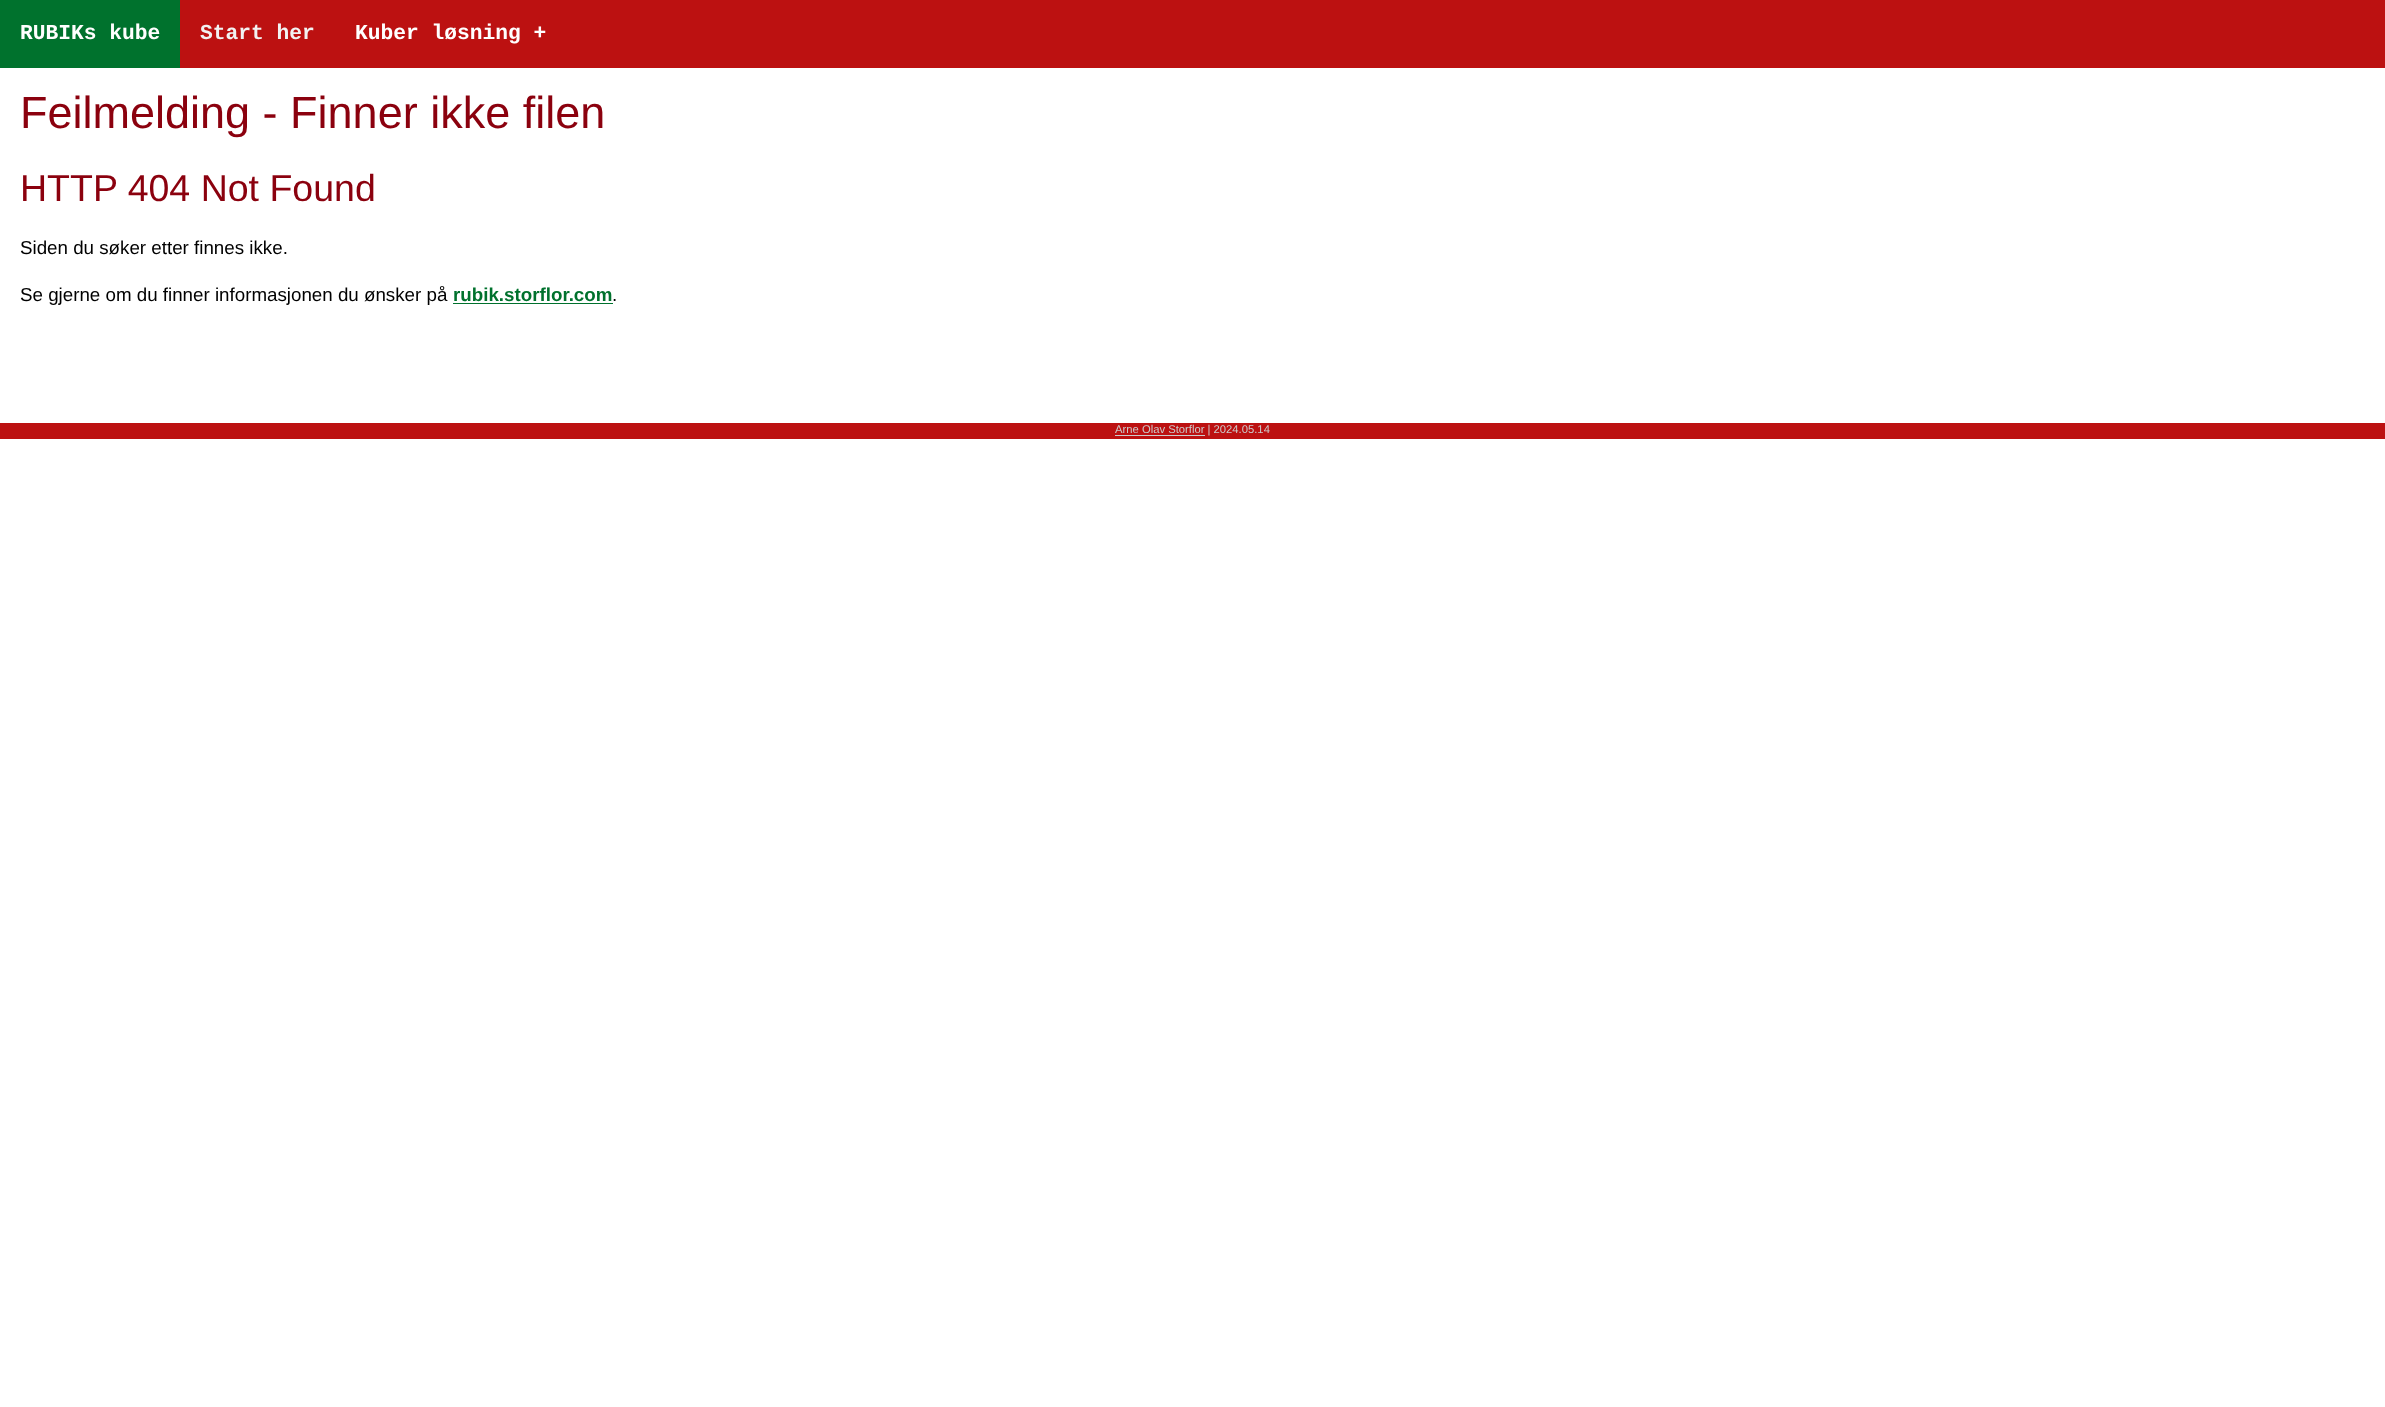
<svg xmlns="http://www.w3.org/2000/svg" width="2385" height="1407">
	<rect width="100%" height="100%" fill="#FFFFFF" />
	<rect x="180" y="0" width="2205" height="68" fill="#BC1111" />
	<rect x="0" y="0" width="180" height="68" fill="#00722D" />
	<text x="20" y="39" font-family="Liberation Mono" font-size="21.25" font-weight="700" fill="#FFFFFF">RUBIKs kube</text>
	<text x="200" y="39" font-family="Liberation Mono" font-size="21.25" font-weight="700" fill="#F2F2F2">Start her</text>
	<text x="355" y="39" font-family="Liberation Mono" font-size="21.25" font-weight="700" fill="#FFFFFF">Kuber løsning +</text>
	<text x="20" y="128" font-family="Liberation Sans" font-size="45" fill="#8B010E">Feilmelding - Finner ikke filen</text>
	<text x="20" y="201" font-family="Liberation Sans" font-size="37.5" fill="#8B010E">HTTP 404 Not Found</text>
	<g font-family="Liberation Sans" font-size="18.75" fill="#000000">
		<text x="20" y="254">Siden du søker etter finnes ikke.</text>
		<text x="20" y="301">Se gjerne om du finner informasjonen du ønsker på</text>
	</g>
	<text x="453" y="301" font-family="Liberation Sans" font-size="18.75" font-weight="700" fill="#00712D">rubik.storflor.com</text>
	<rect x="453" y="303" width="160" height="1" fill="#00712D" />
	<text x="612" y="301" font-family="Liberation Sans" font-size="18.75" fill="#000000">.</text>
	<rect x="0" y="423" width="2385" height="16" fill="#BC1111" />
	<rect x="1115" y="435" width="90" height="1" fill="#CCCCCC" />
	<text x="1115" y="433" font-family="Liberation Sans" font-size="11.25" fill="#CCCCCC">Arne Olav Storflor | 2024.05.14</text>
</svg>
